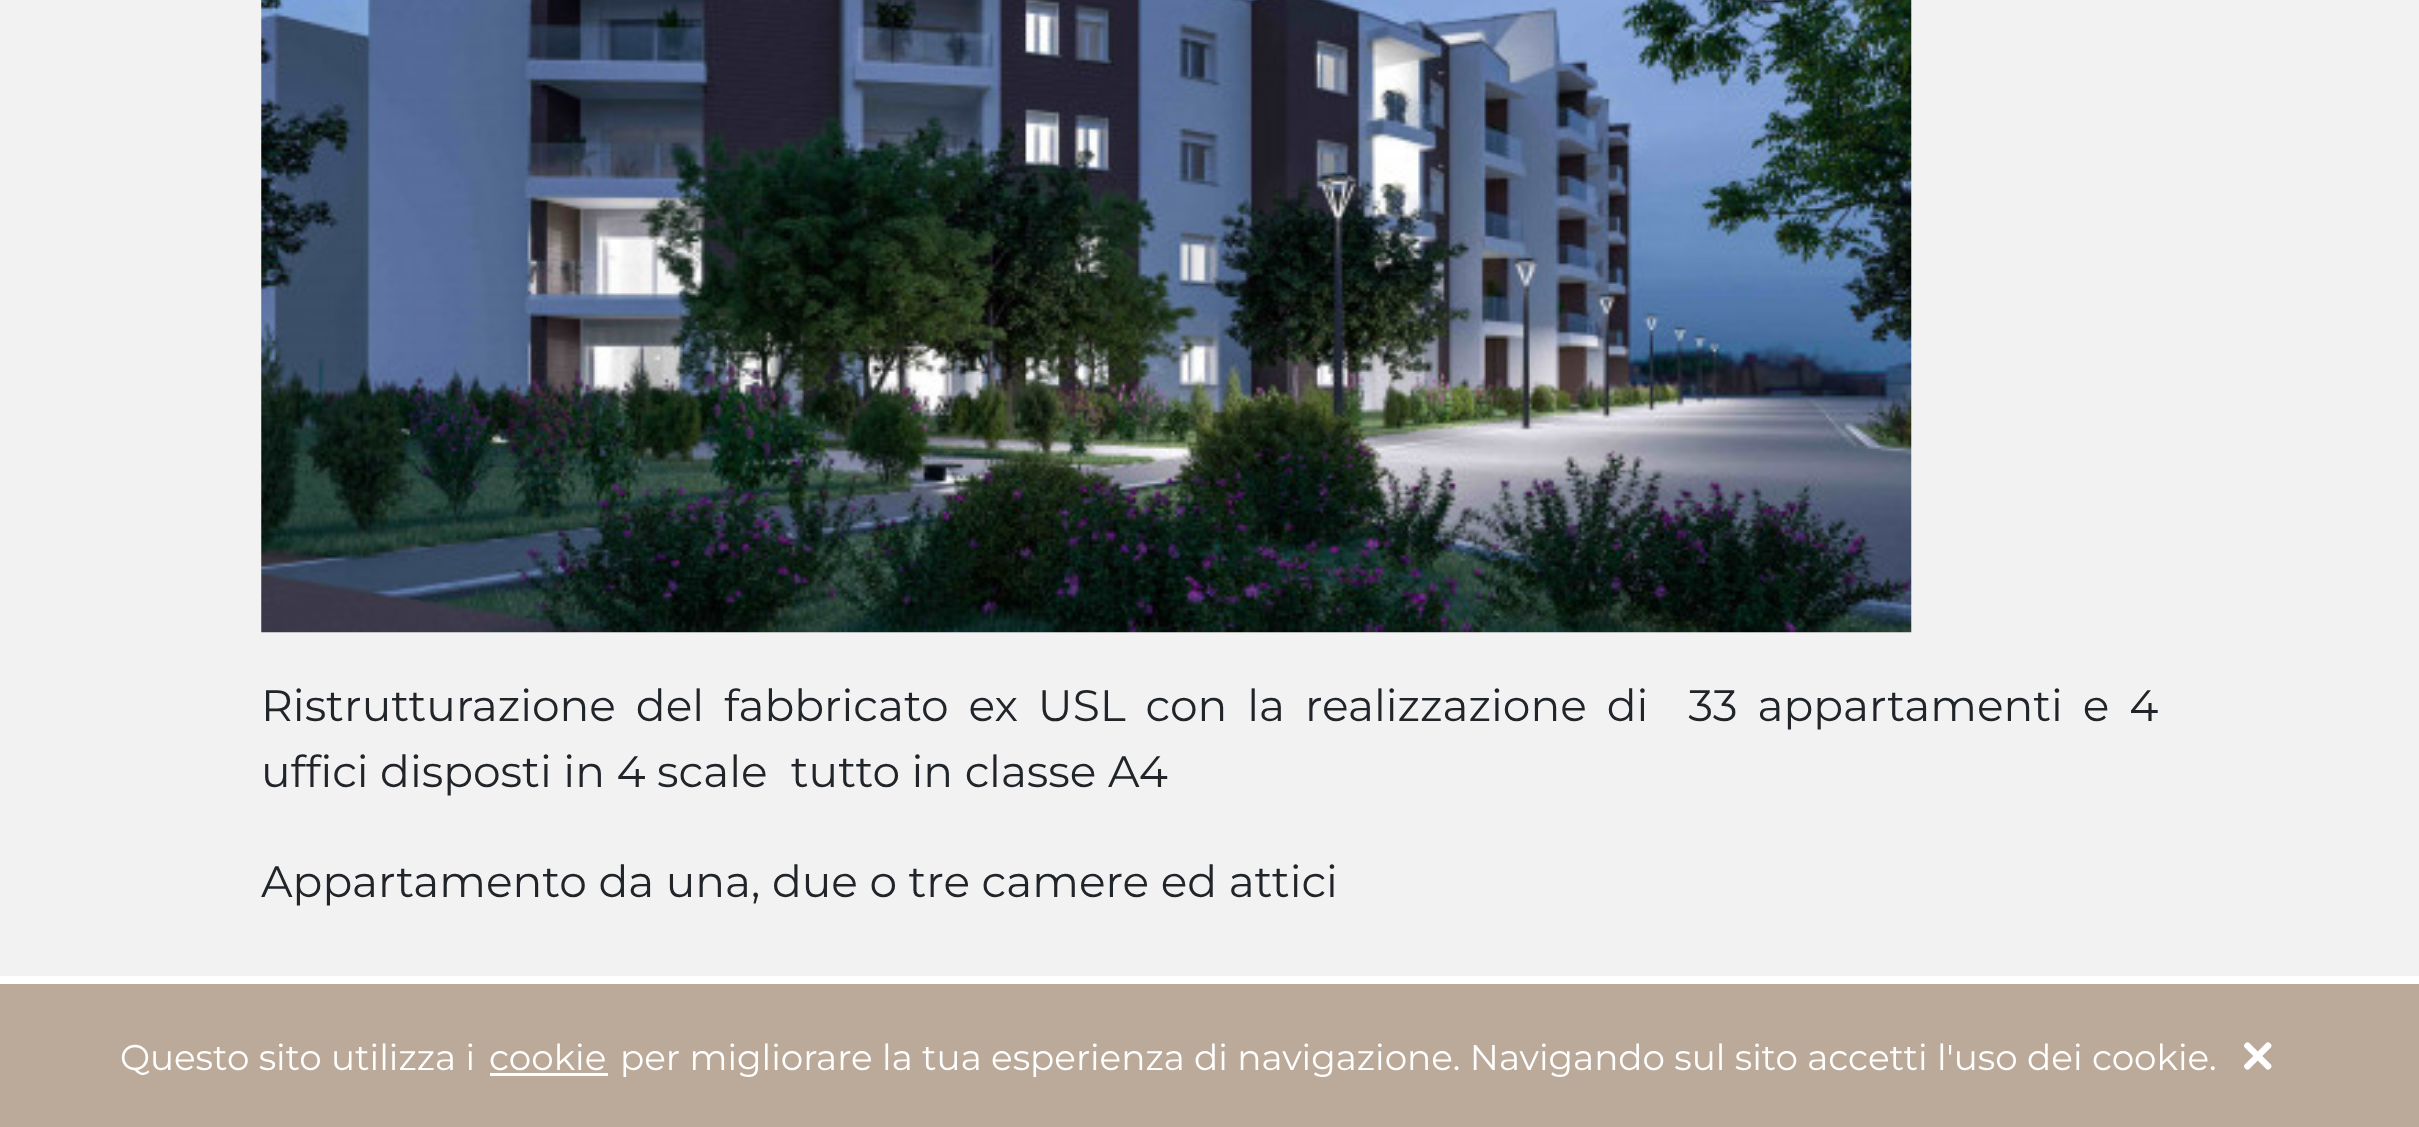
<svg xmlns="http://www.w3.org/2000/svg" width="2419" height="1127">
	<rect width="100%" height="100%" fill="#F2F2F2" />
	<image x="261" y="0" width="1651" height="633" href="assets/img1.png" />
	<g font-family="Montserrat" font-size="44" fill="#212529">
		<text x="261" y="721" word-spacing="8.4" xml:space="preserve">Ristrutturazione del fabbricato ex USL con la realizzazione di  33 appartamenti e 4</text>
		<text x="261" y="787" xml:space="preserve">uffici disposti in 4 scale  tutto in classe A4</text>
		<text x="261" y="897">Appartamento da una, due o tre camere ed attici</text>
	</g>
	<rect x="0" y="984" width="2419" height="143" fill="#BBAA99" />
	<rect x="0" y="976" width="2419" height="8" fill="#FFFFFF" />
	<g font-family="Montserrat" font-size="35.75" fill="#FFFFFF">
		<text x="120" y="1070">Questo sito utilizza i</text>
		<text x="489" y="1070">cookie</text>
	</g>
	<rect x="490" y="1073" width="118" height="3" fill="#FFFFFF" />
	<text x="620" y="1070" font-family="Montserrat" font-size="35.75" fill="#FFFFFF">per migliorare la tua esperienza di navigazione. Navigando sul sito accetti l'uso dei cookie.</text>
	<image x="2244" y="1042" width="28" height="28" href="assets/img2.png" />
</svg>
